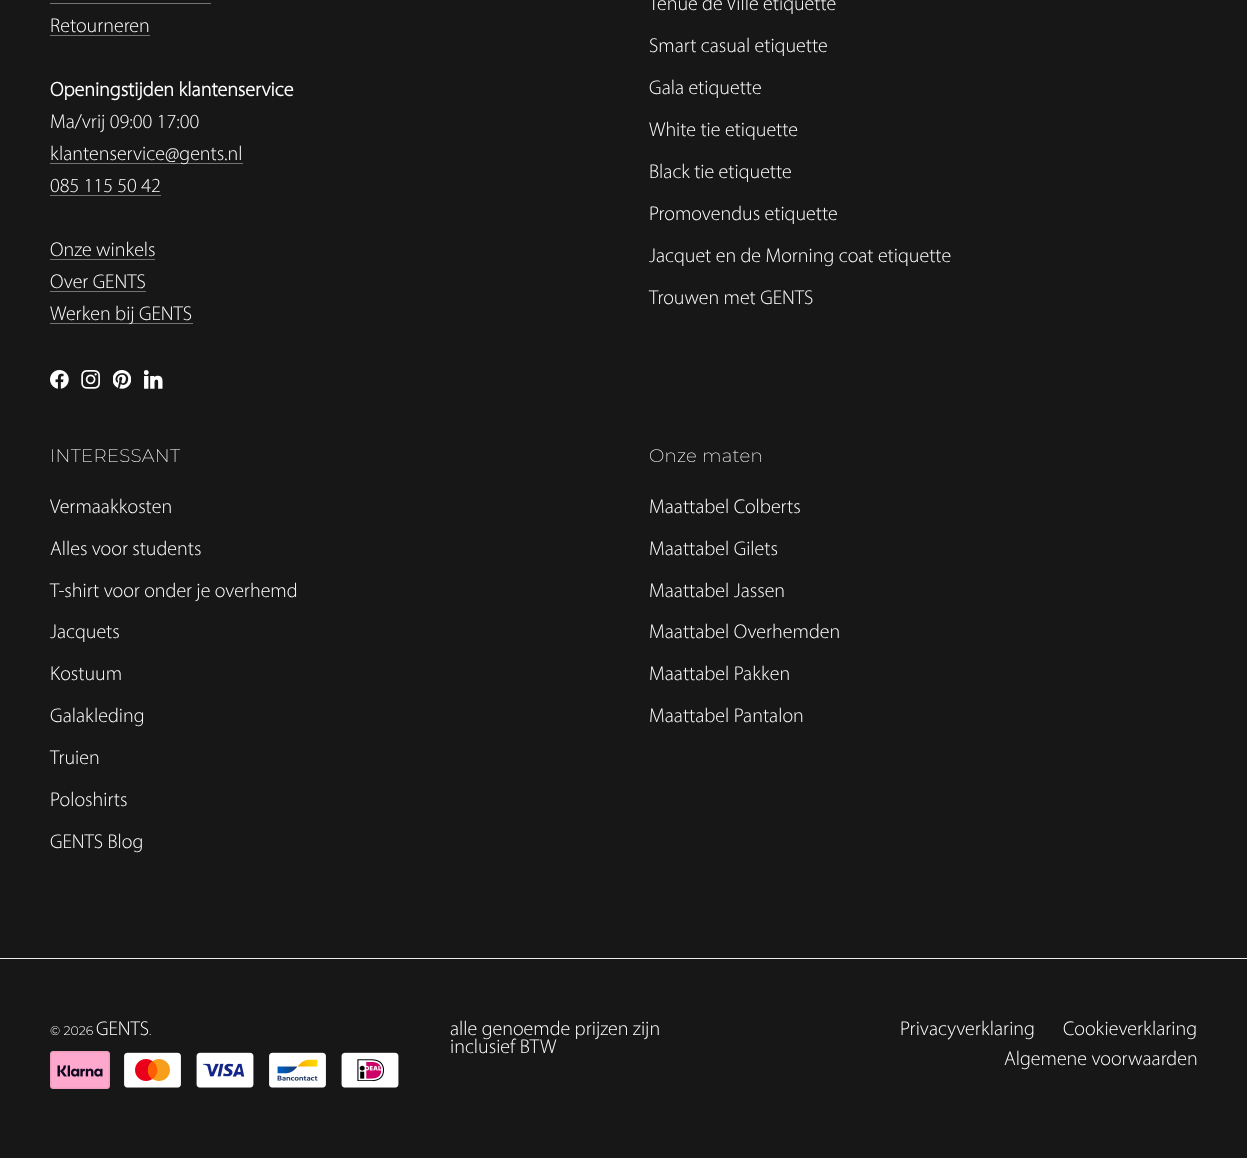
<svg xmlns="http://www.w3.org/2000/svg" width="1247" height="1158">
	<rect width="100%" height="100%" fill="#171717" />
	<rect x="50" y="3" width="161" height="1" fill="#747474" />
	<text x="50" y="32" font-family="Myriad" font-size="20" font-weight="300" fill="#FFFFFF">Retourneren</text>
	<rect x="50" y="35" width="100" height="1" fill="#747474" />
	<text x="50" y="96" font-family="Myriad" font-size="20" font-weight="700" fill="#FFFFFF">Openingstijden klantenservice</text>
	<text x="50" y="128" font-family="Myriad" font-size="20" font-weight="300" fill="#FFFFFF">Ma/vrij 09:00 17:00</text>
	<rect x="50" y="163" width="193" height="1" fill="#747474" />
	<g font-family="Myriad" font-size="20" font-weight="300" fill="#FFFFFF">
		<text x="50" y="160">klantenservice@gents.nl</text>
		<text x="50" y="192">085 115 50 42</text>
	</g>
	<rect x="50" y="195" width="111" height="1" fill="#747474" />
	<text x="50" y="256" font-family="Myriad" font-size="20" font-weight="300" fill="#FFFFFF">Onze winkels</text>
	<rect x="50" y="259" width="105" height="1" fill="#747474" />
	<text x="50" y="288" font-family="Myriad" font-size="20" font-weight="300" fill="#FFFFFF">Over GENTS</text>
	<rect x="50" y="291" width="96" height="1" fill="#747474" />
	<rect x="50" y="323" width="143" height="1" fill="#747474" />
	<text x="50" y="320" font-family="Myriad" font-size="20" font-weight="300" fill="#FFFFFF">Werken bij GENTS</text>
	<image x="50" y="370" width="19" height="19" href="assets/img1.png" />
	<image x="81" y="370" width="19" height="19" href="assets/img2.png" />
	<image x="113" y="370" width="18" height="19" href="assets/img3.png" />
	<image x="144" y="370" width="19" height="19" href="assets/img4.png" />
	<g font-family="Myriad" font-size="20" font-weight="300" fill="#FFFFFF">
		<text x="649" y="10">Tenue de Ville etiquette</text>
		<text x="649" y="52">Smart casual etiquette</text>
		<text x="649" y="94">Gala etiquette</text>
		<text x="649" y="136">White tie etiquette</text>
		<text x="649" y="178">Black tie etiquette</text>
		<text x="649" y="220">Promovendus etiquette</text>
		<text x="649" y="262">Jacquet en de Morning coat etiquette</text>
		<text x="649" y="304">Trouwen met GENTS</text>
	</g>
	<text x="50" y="462" font-family="Montserrat" font-size="18.25" font-weight="200" letter-spacing="0.25" fill="#FFFFFF">INTERESSANT</text>
	<g font-family="Myriad" font-size="20" font-weight="300" fill="#FFFFFF">
		<text x="50" y="513">Vermaakkosten</text>
		<text x="50" y="555">Alles voor students</text>
		<text x="50" y="597">T-shirt voor onder je overhemd</text>
		<text x="50" y="638">Jacquets</text>
		<text x="50" y="680">Kostuum</text>
		<text x="50" y="722">Galakleding</text>
		<text x="50" y="764">Truien</text>
		<text x="50" y="806">Poloshirts</text>
		<text x="50" y="848">GENTS Blog</text>
	</g>
	<text x="649" y="462" font-family="Montserrat" font-size="18.25" font-weight="200" letter-spacing="0.25" fill="#FFFFFF">Onze maten</text>
	<g font-family="Myriad" font-size="20" font-weight="300" fill="#FFFFFF">
		<text x="649" y="513">Maattabel Colberts</text>
		<text x="649" y="555">Maattabel Gilets</text>
		<text x="649" y="597">Maattabel Jassen</text>
		<text x="649" y="638">Maattabel Overhemden</text>
		<text x="649" y="680">Maattabel Pakken</text>
		<text x="649" y="722">Maattabel Pantalon</text>
	</g>
	<rect x="0" y="958" width="1247" height="1" fill="#ECECEC" />
	<text x="50" y="1035" font-family="Montserrat" font-size="12.5" font-weight="300" fill="#FFFFFF">© 2026</text>
	<text x="96" y="1035" font-family="Myriad" font-size="20" font-weight="300" fill="#FFFFFF">GENTS</text>
	<text x="149" y="1035" font-family="Montserrat" font-size="12.5" font-weight="300" fill="#FFFFFF">.</text>
	<image x="50" y="1051" width="60" height="38" href="assets/img5.png" />
	<image x="124" y="1052" width="57" height="36" href="assets/img6.png" />
	<image x="196" y="1052" width="58" height="36" href="assets/img7.png" />
	<image x="269" y="1052" width="57" height="36" href="assets/img8.png" />
	<image x="341" y="1052" width="58" height="36" href="assets/img9.png" />
	<g font-family="Myriad" font-size="20" font-weight="300" fill="#FFFFFF">
		<text x="450" y="1035">alle genoemde prijzen zijn</text>
		<text x="450" y="1053">inclusief BTW</text>
		<text x="900" y="1035">Privacyverklaring</text>
		<text x="1063" y="1035">Cookieverklaring</text>
		<text x="1004" y="1065">Algemene voorwaarden</text>
	</g>
</svg>
